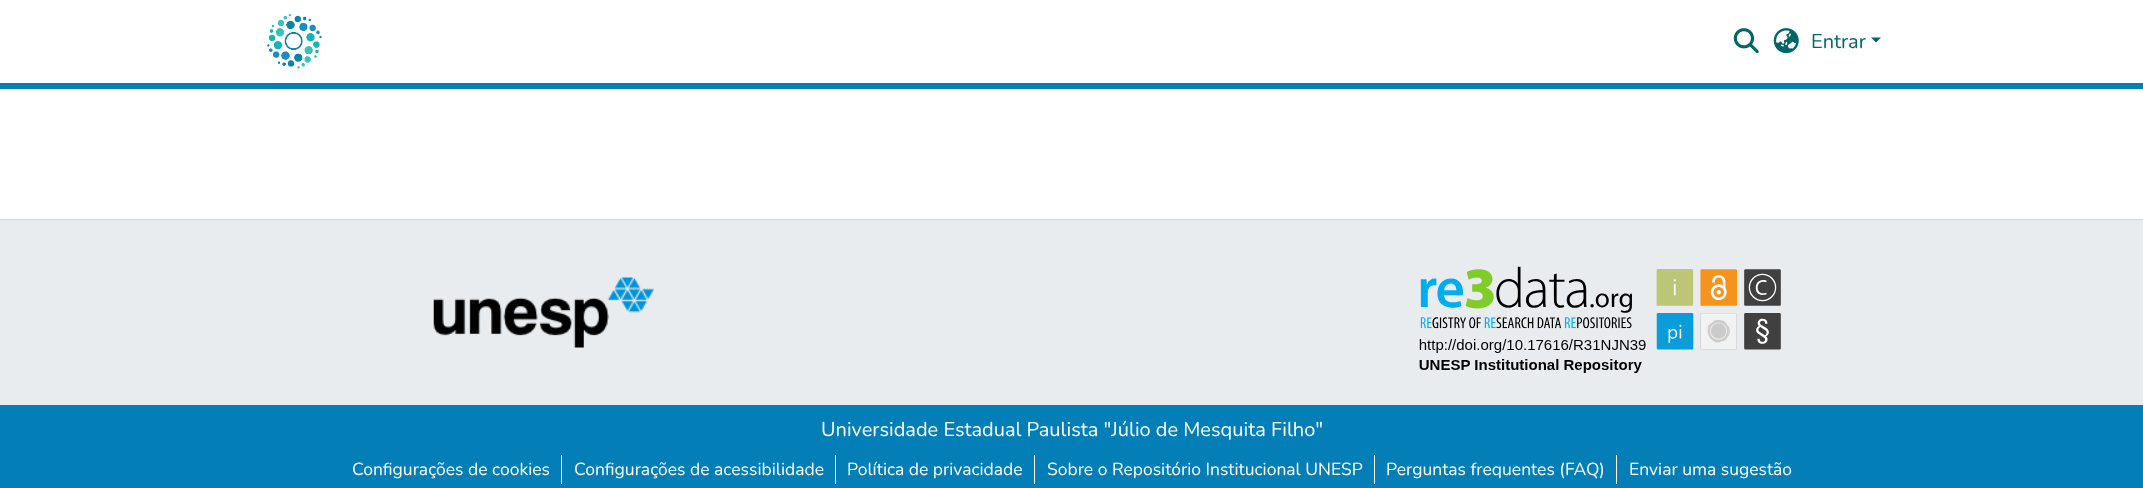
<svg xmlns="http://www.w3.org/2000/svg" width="2143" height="488">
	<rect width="100%" height="100%" fill="#FFFFFF" />
	<rect x="0" y="83" width="2143" height="6" fill="#037EB6" />
	<image x="267" y="14" width="55" height="55" href="assets/img1.png" />
	<image x="1733" y="28" width="26" height="26" href="assets/img2.png" />
	<image x="1773" y="28" width="26" height="26" href="assets/img3.png" />
	<text x="1811" y="48" font-family="Nunito" font-size="20" fill="#006666">Entrar</text>
	<path d="M1871 37.5H1881L1876 42.5Z" fill="#006666" />
	<rect x="0" y="405" width="2143" height="83" fill="#037EB6" />
	<rect x="0" y="219" width="2143" height="1" fill="#CED4DA" />
	<rect x="0" y="220" width="2143" height="185" fill="#E9ECEF" />
	<image x="433" y="277" width="221" height="71" href="assets/img4.png" />
	<image x="1419" y="266" width="362" height="107" href="assets/img5.png" />
	<text x="821" y="436" font-family="Nunito" font-size="20" fill="#FFFFFF">Universidade Estadual Paulista "Júlio de Mesquita Filho"</text>
	<text x="352" y="475" font-family="Nunito" font-size="17.5" fill="#FFFFFF">Configurações de cookies</text>
	<rect x="561" y="455" width="1" height="29" fill="#FFFFFF" />
	<text x="574" y="475" font-family="Nunito" font-size="17.5" fill="#FFFFFF">Configurações de acessibilidade</text>
	<rect x="835" y="455" width="1" height="29" fill="#FFFFFF" />
	<text x="847" y="475" font-family="Nunito" font-size="17.5" fill="#FFFFFF">Política de privacidade</text>
	<rect x="1034" y="455" width="1" height="29" fill="#FFFFFF" />
	<text x="1047" y="475" font-family="Nunito" font-size="17.5" fill="#FFFFFF">Sobre o Repositório Institucional UNESP</text>
	<rect x="1374" y="455" width="1" height="29" fill="#FFFFFF" />
	<text x="1386" y="475" font-family="Nunito" font-size="17.5" fill="#FFFFFF">Perguntas frequentes (FAQ)</text>
	<rect x="1616" y="455" width="1" height="29" fill="#FFFFFF" />
	<text x="1629" y="475" font-family="Nunito" font-size="17.5" fill="#FFFFFF">Enviar uma sugestão</text>
</svg>
